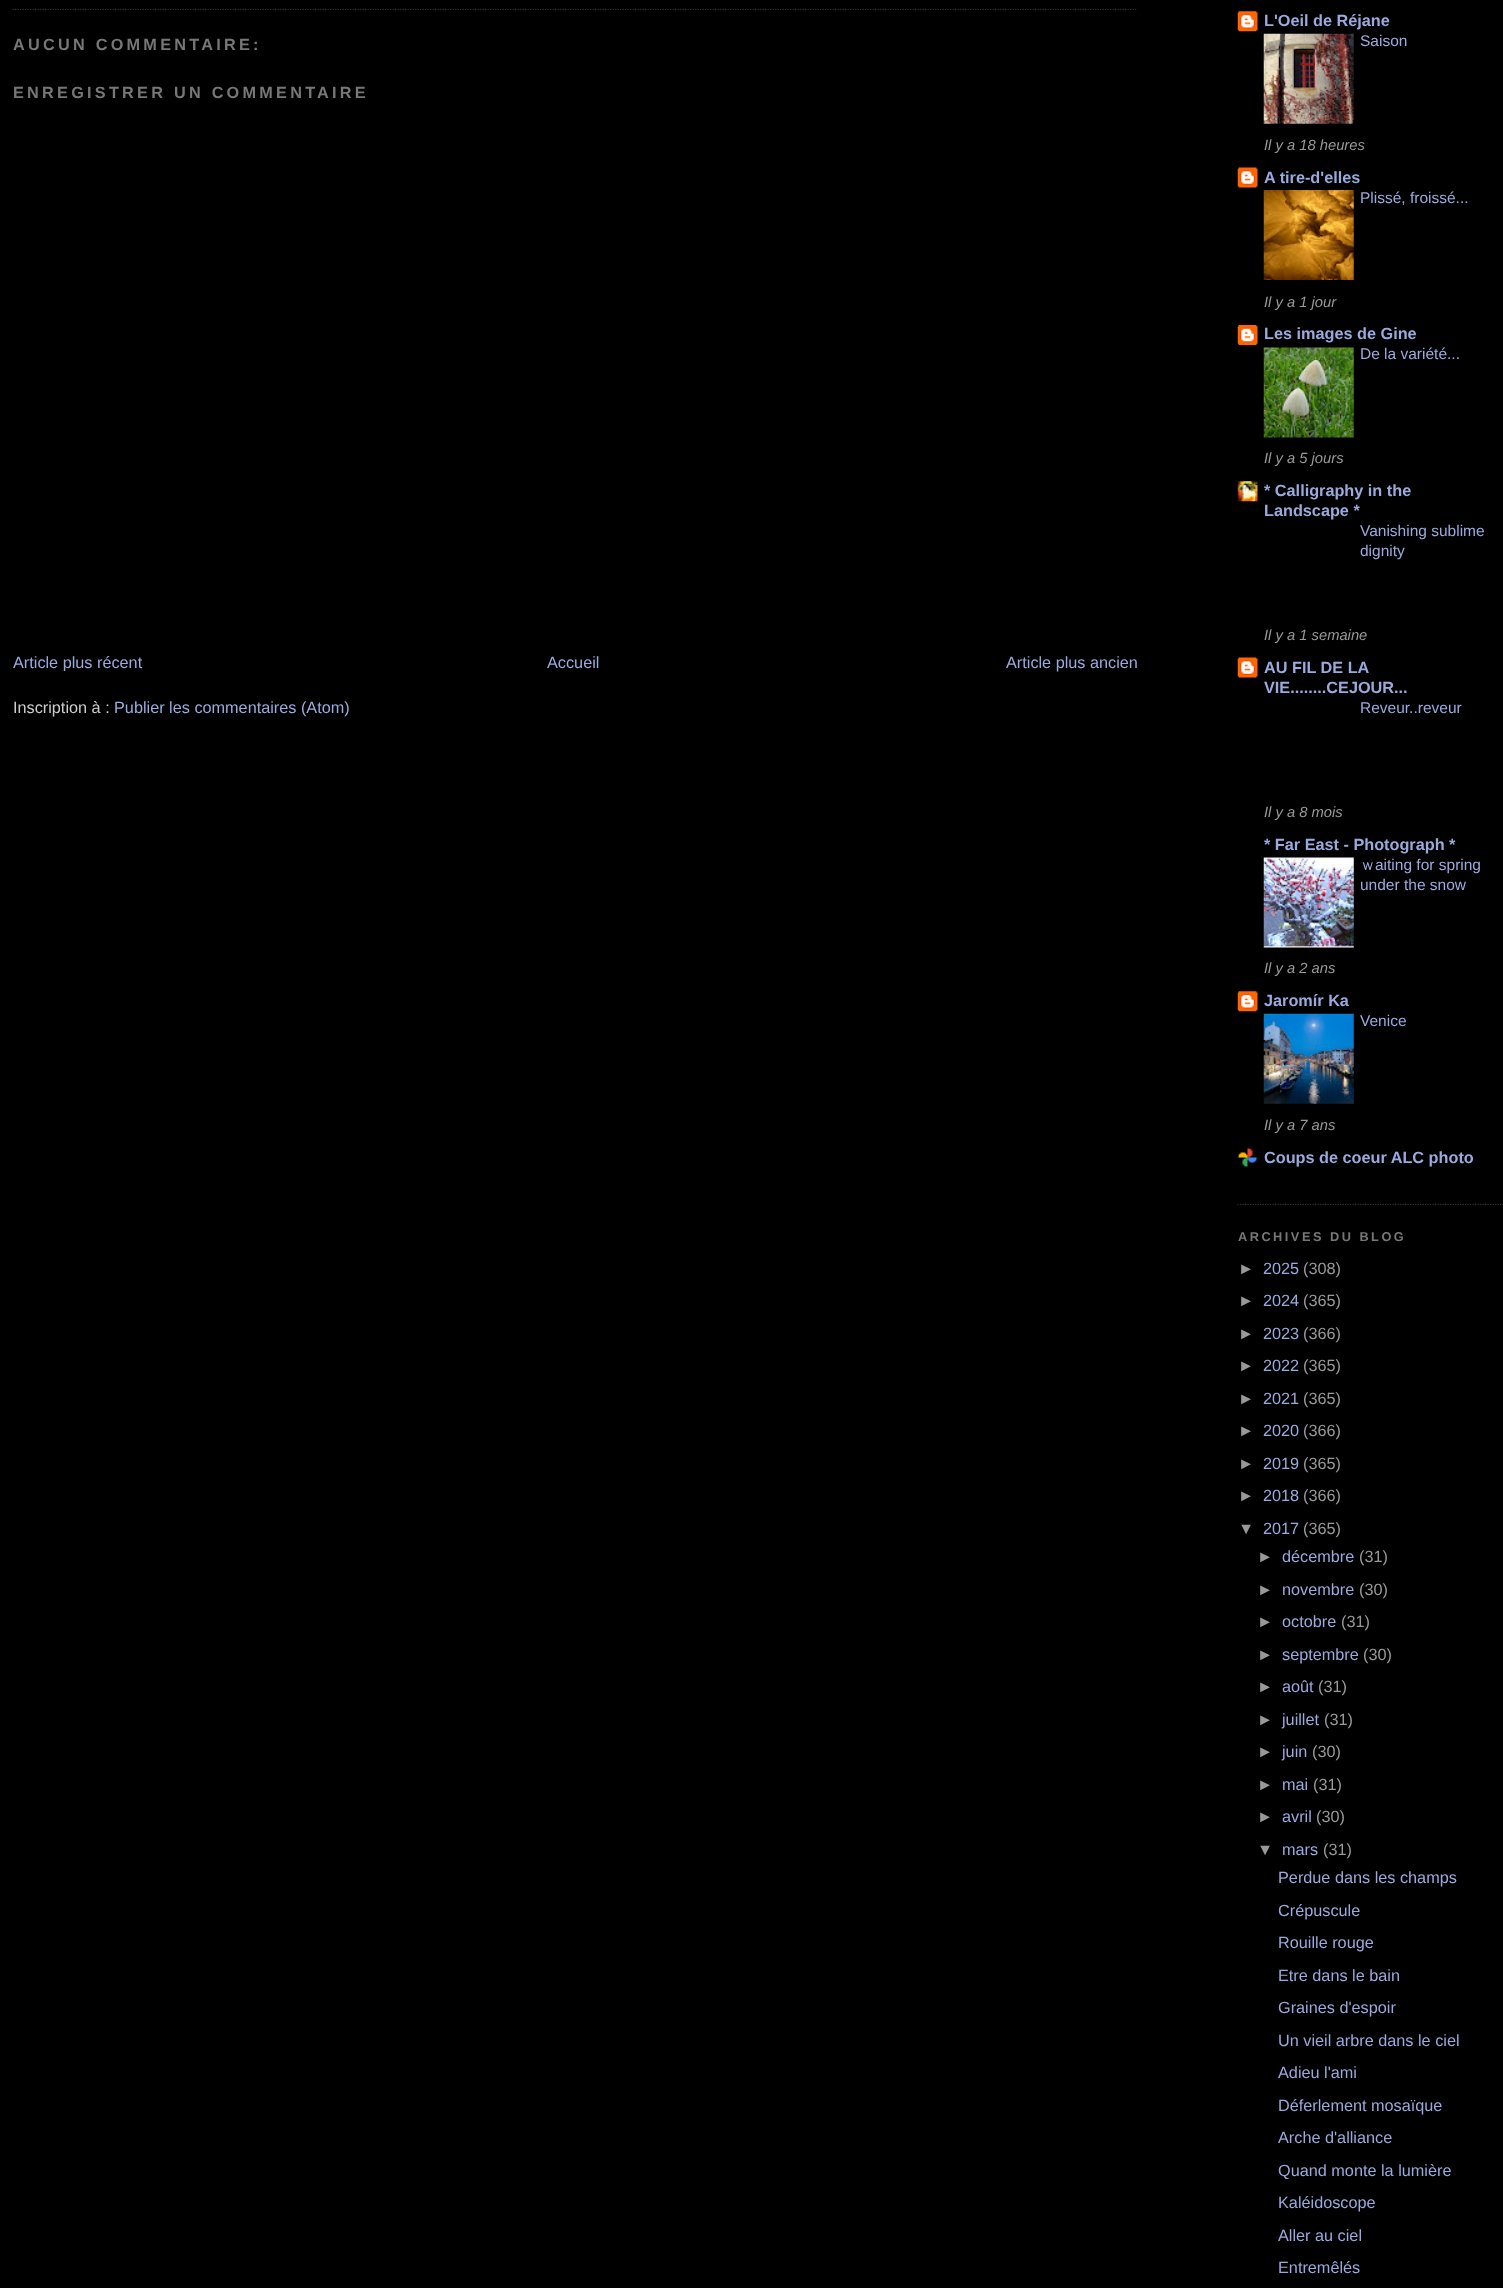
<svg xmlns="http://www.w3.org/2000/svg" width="1503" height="2288">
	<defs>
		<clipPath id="clip1"><rect x="13" y="653" width="1125" height="18" /></clipPath>
	</defs>
	<rect width="100%" height="100%" fill="#000000" />
	<path d="M12.5 9.5H1137.5" fill="none" stroke="#333333" stroke-width="1.2" stroke-dasharray="1.25 1.25" />
	<g font-family="Liberation Sans" font-size="16.25" font-weight="700" letter-spacing="3.25" fill="#777777">
		<text x="13" y="50">AUCUN COMMENTAIRE:</text>
		<text x="13" y="98">ENREGISTRER UN COMMENTAIRE</text>
	</g>
	<g clip-path="url(#clip1)">
		<text x="13" y="668" font-family="Liberation Sans" font-size="16.25" fill="#99AADD">Article plus récent</text>
	</g>
	<g font-family="Liberation Sans" font-size="16.25" fill="#99AADD">
		<text x="547" y="668">Accueil</text>
		<text x="1006" y="668">Article plus ancien</text>
	</g>
	<text x="13" y="713" font-family="Liberation Sans" font-size="16.25" fill="#CCCCCC">Inscription à :</text>
	<text x="114" y="713" font-family="Liberation Sans" font-size="16.25" fill="#99AADD">Publier les commentaires (Atom)</text>
	<path d="M1237.5 1204.5H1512.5" fill="none" stroke="#333333" stroke-width="1.2" stroke-dasharray="1.25 1.25" />
	<image x="1237" y="11" width="21" height="21" href="assets/img1.png" />
	<text x="1264" y="26" font-family="Liberation Sans" font-size="16.25" font-weight="700" fill="#99AADD">L'Oeil de Réjane</text>
	<image x="1263" y="33" width="91" height="91" href="assets/img2.png" />
	<text x="1360" y="46" font-family="Liberation Sans" font-size="15.5" fill="#99AADD">Saison</text>
	<text x="1264" y="150" font-family="Liberation Sans" font-size="14.75" font-style="italic" fill="#999999">Il y a 18 heures</text>
	<image x="1237" y="167" width="21" height="21" href="assets/img3.png" />
	<text x="1264" y="183" font-family="Liberation Sans" font-size="16.25" font-weight="700" fill="#99AADD">A tire-d'elles</text>
	<image x="1263" y="190" width="91" height="90" href="assets/img4.png" />
	<text x="1360" y="203" font-family="Liberation Sans" font-size="15.5" fill="#99AADD">Plissé, froissé...</text>
	<text x="1264" y="307" font-family="Liberation Sans" font-size="14.75" font-style="italic" fill="#999999">Il y a 1 jour</text>
	<image x="1237" y="325" width="21" height="20" href="assets/img5.png" />
	<text x="1264" y="339" font-family="Liberation Sans" font-size="16.25" font-weight="700" fill="#99AADD">Les images de Gine</text>
	<image x="1263" y="347" width="91" height="91" href="assets/img6.png" />
	<text x="1360" y="359" font-family="Liberation Sans" font-size="15.5" fill="#99AADD">De la variété...</text>
	<text x="1264" y="463" font-family="Liberation Sans" font-size="14.75" font-style="italic" fill="#999999">Il y a 5 jours</text>
	<image x="1237" y="481" width="21" height="21" href="assets/img7.png" />
	<g font-family="Liberation Sans" font-size="16.25" font-weight="700" fill="#99AADD">
		<text x="1264" y="496">* Calligraphy in the</text>
		<text x="1264" y="516">Landscape *</text>
	</g>
	<g font-family="Liberation Sans" font-size="15.5" fill="#99AADD">
		<text x="1360" y="536">Vanishing sublime</text>
		<text x="1360" y="556">dignity</text>
	</g>
	<text x="1264" y="640" font-family="Liberation Sans" font-size="14.75" font-style="italic" fill="#999999">Il y a 1 semaine</text>
	<image x="1237" y="657" width="21" height="21" href="assets/img3.png" />
	<g font-family="Liberation Sans" font-size="16.25" font-weight="700" fill="#99AADD">
		<text x="1264" y="673">AU FIL DE LA</text>
		<text x="1264" y="693">VIE........CEJOUR...</text>
	</g>
	<text x="1360" y="713" font-family="Liberation Sans" font-size="15.5" fill="#99AADD">Reveur..reveur</text>
	<text x="1264" y="817" font-family="Liberation Sans" font-size="14.75" font-style="italic" fill="#999999">Il y a 8 mois</text>
	<text x="1264" y="850" font-family="Liberation Sans" font-size="16.25" font-weight="700" fill="#99AADD">* Far East - Photograph *</text>
	<image x="1263" y="857" width="91" height="91" href="assets/img8.png" />
	<text x="1360" y="870" font-family="WenQuanYi Zen Hei" font-size="15.5" font-weight="500" fill="#99AADD">ｗ</text>
	<g font-family="Liberation Sans" font-size="15.5" fill="#99AADD">
		<text x="1375" y="870">aiting for spring</text>
		<text x="1360" y="890">under the snow</text>
	</g>
	<text x="1264" y="973" font-family="Liberation Sans" font-size="14.75" font-style="italic" fill="#999999">Il y a 2 ans</text>
	<image x="1237" y="991" width="21" height="21" href="assets/img1.png" />
	<text x="1264" y="1006" font-family="Liberation Sans" font-size="16.25" font-weight="700" fill="#99AADD">Jaromír Ka</text>
	<image x="1263" y="1013" width="91" height="91" href="assets/img9.png" />
	<text x="1360" y="1026" font-family="Liberation Sans" font-size="15.5" fill="#99AADD">Venice</text>
	<text x="1264" y="1130" font-family="Liberation Sans" font-size="14.75" font-style="italic" fill="#999999">Il y a 7 ans</text>
	<image x="1237" y="1147" width="21" height="21" href="assets/img10.png" />
	<text x="1264" y="1163" font-family="Liberation Sans" font-size="16.25" font-weight="700" fill="#99AADD">Coups de coeur ALC photo</text>
	<text x="1238" y="1241" font-family="Liberation Sans" font-size="12.75" font-weight="700" letter-spacing="2.5" fill="#777777">ARCHIVES DU BLOG</text>
	<text x="1238" y="1274" font-family="Liberation Sans" font-size="16.25" fill="#999999">►</text>
	<text x="1263" y="1274" font-family="Liberation Sans" font-size="16.25" fill="#99AADD">2025</text>
	<g font-family="Liberation Sans" font-size="16.25" fill="#999999">
		<text x="1303" y="1274">(308)</text>
		<text x="1238" y="1306">►</text>
	</g>
	<text x="1263" y="1306" font-family="Liberation Sans" font-size="16.25" fill="#99AADD">2024</text>
	<g font-family="Liberation Sans" font-size="16.25" fill="#999999">
		<text x="1303" y="1306">(365)</text>
		<text x="1238" y="1339">►</text>
	</g>
	<text x="1263" y="1339" font-family="Liberation Sans" font-size="16.25" fill="#99AADD">2023</text>
	<g font-family="Liberation Sans" font-size="16.25" fill="#999999">
		<text x="1303" y="1339">(366)</text>
		<text x="1238" y="1371">►</text>
	</g>
	<text x="1263" y="1371" font-family="Liberation Sans" font-size="16.25" fill="#99AADD">2022</text>
	<g font-family="Liberation Sans" font-size="16.25" fill="#999999">
		<text x="1303" y="1371">(365)</text>
		<text x="1238" y="1404">►</text>
	</g>
	<text x="1263" y="1404" font-family="Liberation Sans" font-size="16.25" fill="#99AADD">2021</text>
	<g font-family="Liberation Sans" font-size="16.25" fill="#999999">
		<text x="1303" y="1404">(365)</text>
		<text x="1238" y="1436">►</text>
	</g>
	<text x="1263" y="1436" font-family="Liberation Sans" font-size="16.25" fill="#99AADD">2020</text>
	<g font-family="Liberation Sans" font-size="16.25" fill="#999999">
		<text x="1303" y="1436">(366)</text>
		<text x="1238" y="1469">►</text>
	</g>
	<text x="1263" y="1469" font-family="Liberation Sans" font-size="16.25" fill="#99AADD">2019</text>
	<g font-family="Liberation Sans" font-size="16.25" fill="#999999">
		<text x="1303" y="1469">(365)</text>
		<text x="1238" y="1501">►</text>
	</g>
	<text x="1263" y="1501" font-family="Liberation Sans" font-size="16.25" fill="#99AADD">2018</text>
	<g font-family="Liberation Sans" font-size="16.25" fill="#999999">
		<text x="1303" y="1501">(366)</text>
		<text x="1238" y="1534">▼</text>
	</g>
	<text x="1263" y="1534" font-family="Liberation Sans" font-size="16.25" fill="#99AADD">2017</text>
	<g font-family="Liberation Sans" font-size="16.25" fill="#999999">
		<text x="1303" y="1534">(365)</text>
		<text x="1257" y="1562">►</text>
	</g>
	<text x="1282" y="1562" font-family="Liberation Sans" font-size="16.25" fill="#99AADD">décembre</text>
	<g font-family="Liberation Sans" font-size="16.25" fill="#999999">
		<text x="1359" y="1562">(31)</text>
		<text x="1257" y="1595">►</text>
	</g>
	<text x="1282" y="1595" font-family="Liberation Sans" font-size="16.25" fill="#99AADD">novembre</text>
	<g font-family="Liberation Sans" font-size="16.25" fill="#999999">
		<text x="1359" y="1595">(30)</text>
		<text x="1257" y="1627">►</text>
	</g>
	<text x="1282" y="1627" font-family="Liberation Sans" font-size="16.25" fill="#99AADD">octobre</text>
	<g font-family="Liberation Sans" font-size="16.25" fill="#999999">
		<text x="1341" y="1627">(31)</text>
		<text x="1257" y="1660">►</text>
	</g>
	<text x="1282" y="1660" font-family="Liberation Sans" font-size="16.25" fill="#99AADD">septembre</text>
	<g font-family="Liberation Sans" font-size="16.25" fill="#999999">
		<text x="1363" y="1660">(30)</text>
		<text x="1257" y="1692">►</text>
	</g>
	<text x="1282" y="1692" font-family="Liberation Sans" font-size="16.25" fill="#99AADD">août</text>
	<g font-family="Liberation Sans" font-size="16.25" fill="#999999">
		<text x="1318" y="1692">(31)</text>
		<text x="1257" y="1725">►</text>
	</g>
	<text x="1282" y="1725" font-family="Liberation Sans" font-size="16.25" fill="#99AADD">juillet</text>
	<g font-family="Liberation Sans" font-size="16.25" fill="#999999">
		<text x="1324" y="1725">(31)</text>
		<text x="1257" y="1757">►</text>
	</g>
	<text x="1282" y="1757" font-family="Liberation Sans" font-size="16.25" fill="#99AADD">juin</text>
	<g font-family="Liberation Sans" font-size="16.25" fill="#999999">
		<text x="1312" y="1757">(30)</text>
		<text x="1257" y="1790">►</text>
	</g>
	<text x="1282" y="1790" font-family="Liberation Sans" font-size="16.25" fill="#99AADD">mai</text>
	<g font-family="Liberation Sans" font-size="16.25" fill="#999999">
		<text x="1313" y="1790">(31)</text>
		<text x="1257" y="1822">►</text>
	</g>
	<text x="1282" y="1822" font-family="Liberation Sans" font-size="16.25" fill="#99AADD">avril</text>
	<g font-family="Liberation Sans" font-size="16.25" fill="#999999">
		<text x="1316" y="1822">(30)</text>
		<text x="1257" y="1855">▼</text>
	</g>
	<text x="1282" y="1855" font-family="Liberation Sans" font-size="16.25" fill="#99AADD">mars</text>
	<text x="1323" y="1855" font-family="Liberation Sans" font-size="16.25" fill="#999999">(31)</text>
	<g font-family="Liberation Sans" font-size="16.25" fill="#99AADD">
		<text x="1278" y="1883">Perdue dans les champs</text>
		<text x="1278" y="1916">Crépuscule</text>
		<text x="1278" y="1948">Rouille rouge</text>
		<text x="1278" y="1981">Etre dans le bain</text>
		<text x="1278" y="2013">Graines d'espoir</text>
		<text x="1278" y="2046">Un vieil arbre dans le ciel</text>
		<text x="1278" y="2078">Adieu l'ami</text>
		<text x="1278" y="2111">Déferlement mosaïque</text>
		<text x="1278" y="2143">Arche d'alliance</text>
		<text x="1278" y="2176">Quand monte la lumière</text>
		<text x="1278" y="2208">Kaléidoscope</text>
		<text x="1278" y="2241">Aller au ciel</text>
		<text x="1278" y="2273">Entremêlés</text>
	</g>
</svg>
